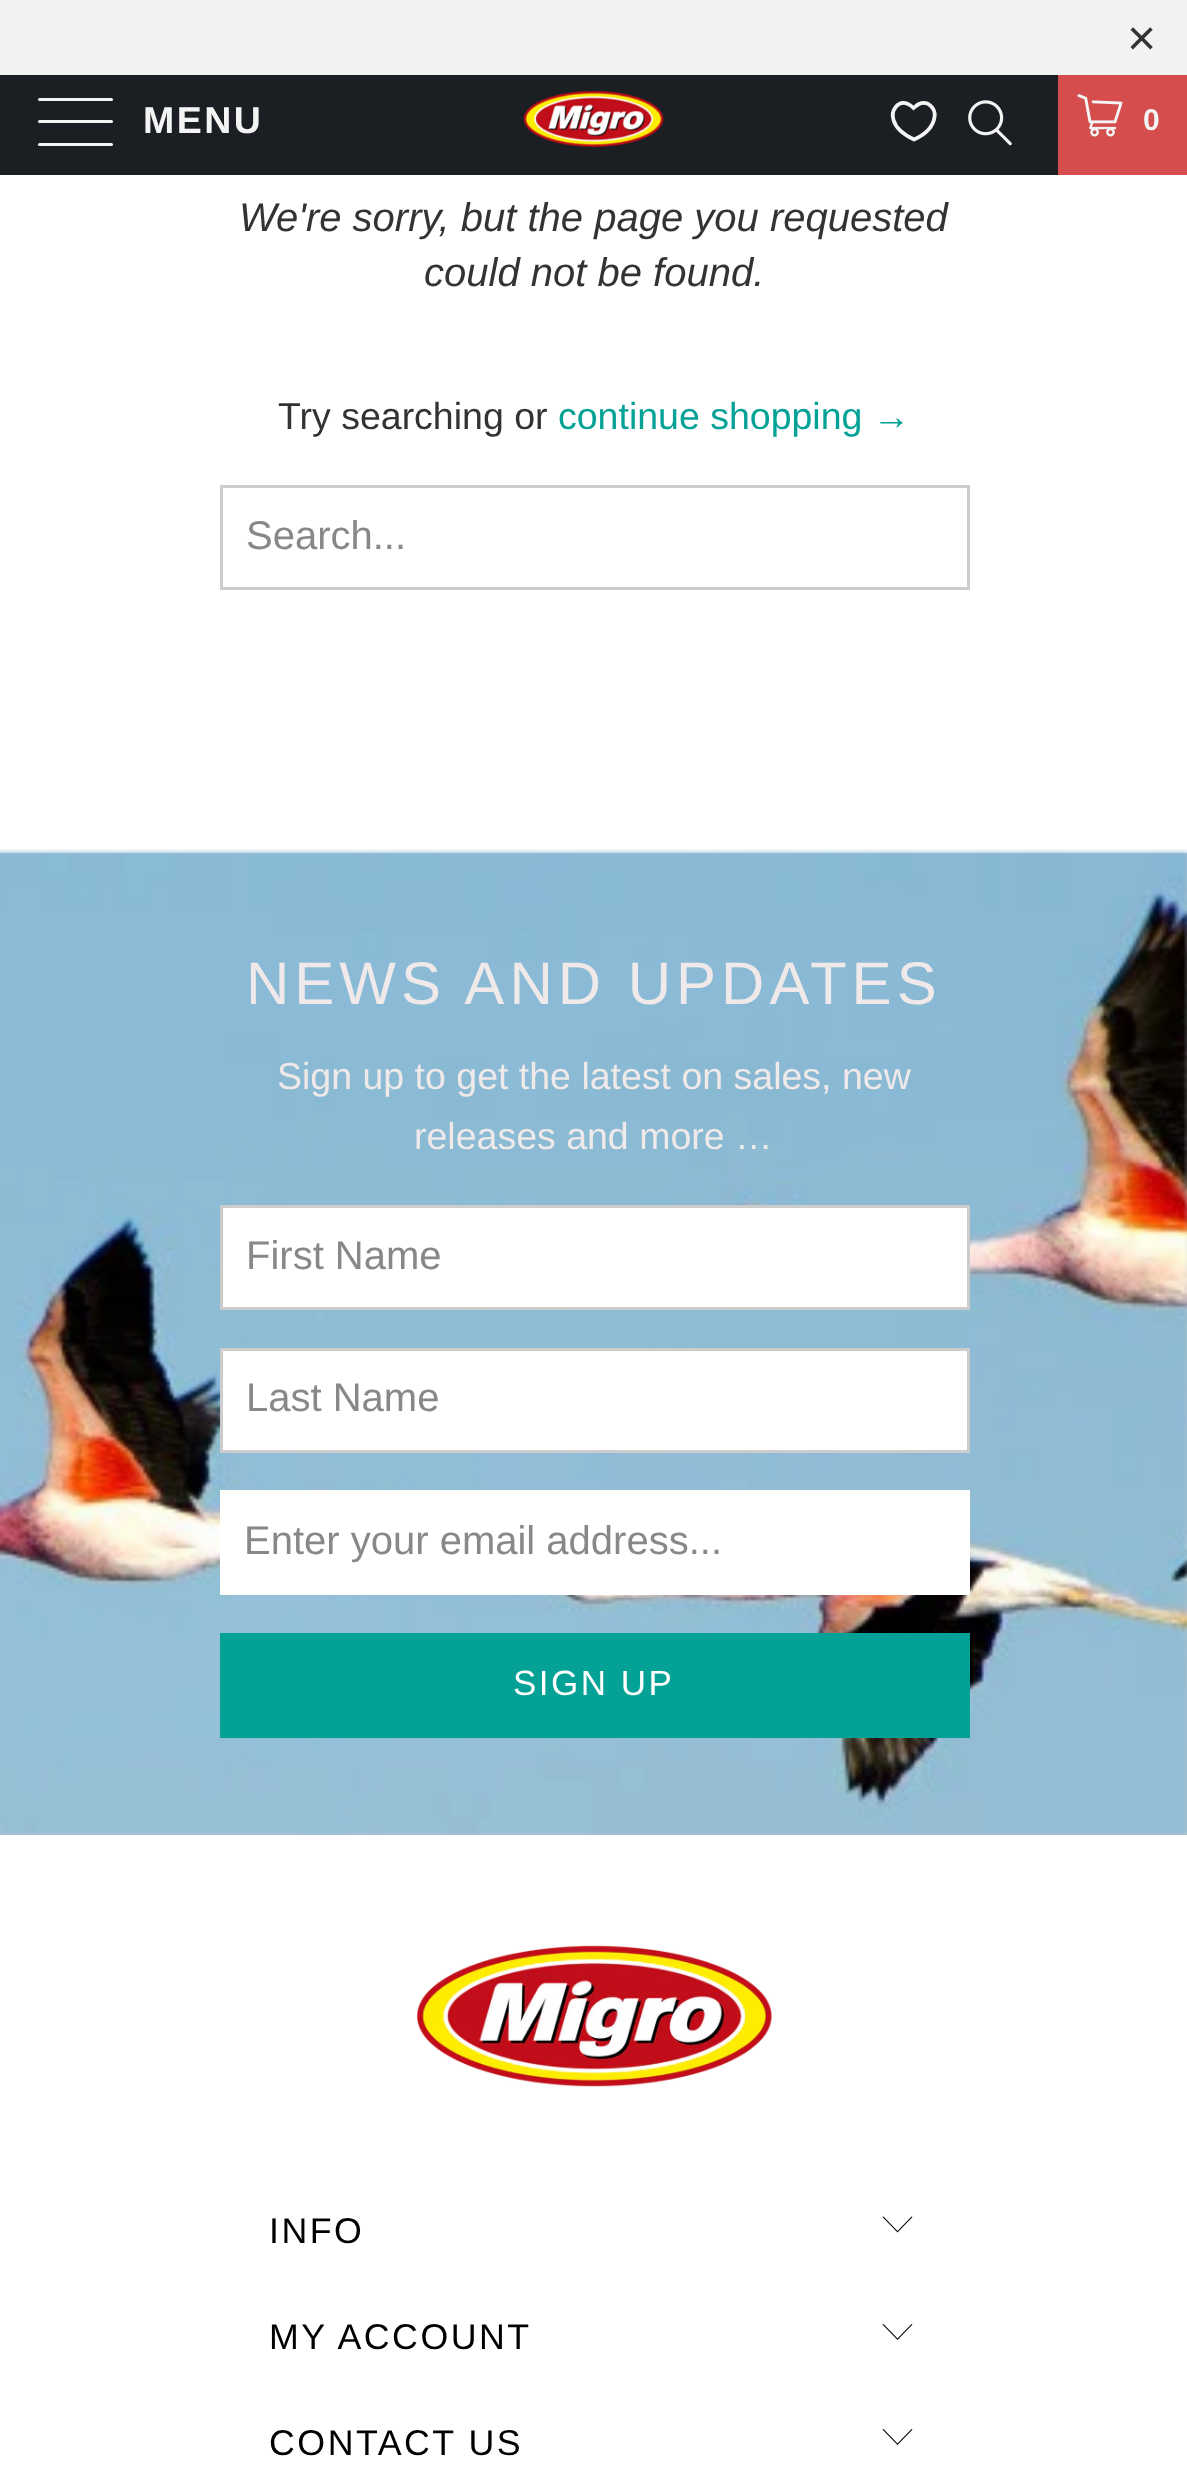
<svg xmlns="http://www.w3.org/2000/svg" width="1187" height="2479">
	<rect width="100%" height="100%" fill="#FFFFFF" />
	<rect x="0" y="0" width="1187" height="75" fill="#F2F2F2" />
	<text x="1127" y="55" font-family="Liberation Sans" font-size="50" letter-spacing="5" fill="#333333">×</text>
	<rect x="0" y="75" width="1058" height="100" fill="#1B1F23" />
	<rect x="38" y="98" width="75" height="3" rx="1.5" fill="#F4F4F4" />
	<rect x="38" y="120" width="75" height="3" rx="1.5" fill="#F4F4F4" />
	<rect x="38" y="143" width="75" height="3" rx="1.5" fill="#F4F4F4" />
	<text x="143" y="133" font-family="Liberation Sans" font-size="37.5" font-weight="700" letter-spacing="2.5" fill="#F4F4F4">MENU</text>
	<image x="523" y="90" width="141" height="58" href="assets/img1.png" />
	<path d="M914 139.5C905.5 135.5 896 129 893.5 120C890.5 110.5 898 99.5 908 104C910.5 105 912 106.5 913.5 108C915.5 106.5 917 105 919 104C928 100 936 108.5 934.5 117C933 128 923 135.5 914 139.5Z" fill="none" stroke="#F4F4F4" stroke-width="3.8" />
	<image x="968" y="100" width="44" height="46" href="assets/img2.png" />
	<rect x="1058" y="75" width="129" height="100" fill="#D54D4D" />
	<image x="1077" y="94" width="46" height="43" href="assets/img3.png" />
	<text x="1143" y="130" font-family="Liberation Sans" font-size="30" font-weight="700" letter-spacing="2.5" fill="#F4F4F4">0</text>
	<g font-family="Liberation Sans" font-size="40" font-style="italic" fill="#333333">
		<text x="239" y="231">We're sorry, but the page you requested</text>
		<text x="424" y="286">could not be found.</text>
	</g>
	<text x="278" y="429" font-family="Liberation Sans" font-size="37.5" fill="#333333">Try searching or</text>
	<text x="558" y="429" font-family="Liberation Sans" font-size="37.5" fill="#03A196">continue shopping →</text>
	<rect x="221.5" y="486.5" width="747" height="102" fill="none" stroke="#CCCCCC" stroke-width="3" />
	<text x="246" y="549" font-family="Liberation Sans" font-size="40" fill="#888888">Search...</text>
	<rect x="0" y="853" width="1187" height="982" fill="#CCCCCC" />
	<image x="0" y="849" width="1187" height="986" href="assets/img4.png" />
	<text x="246" y="1004" font-family="Liberation Sans" font-size="60" letter-spacing="5" fill="#EFE9E9">NEWS AND UPDATES</text>
	<g font-family="Liberation Sans" font-size="37.5" fill="#EFE9E9">
		<text x="277" y="1089">Sign up to get the latest on sales, new</text>
		<text x="414" y="1149">releases and more …</text>
	</g>
	<rect x="221.5" y="1206.5" width="747" height="102" fill="#FFFFFF" stroke="#CCCCCC" stroke-width="3" />
	<text x="246" y="1269" font-family="Liberation Sans" font-size="40" fill="#888888">First Name</text>
	<rect x="221.5" y="1349.5" width="747" height="102" fill="#FFFFFF" stroke="#CCCCCC" stroke-width="3" />
	<text x="246" y="1411" font-family="Liberation Sans" font-size="40" fill="#888888">Last Name</text>
	<rect x="220" y="1490" width="750" height="105" fill="#FFFFFF" />
	<text x="244" y="1554" font-family="Liberation Sans" font-size="40" fill="#888888">Enter your email address...</text>
	<rect x="220" y="1633" width="750" height="105" fill="#03A196" />
	<text x="513" y="1695" font-family="Liberation Sans" font-size="35" letter-spacing="2.5" fill="#FFFFFF">SIGN UP</text>
	<image x="416" y="1945" width="357" height="142" href="assets/img5.png" />
	<text x="269" y="2243" font-family="Liberation Sans" font-size="35.75" letter-spacing="2.5" fill="#000000">INFO</text>
	<path d="M897.5 2232.5L882.5 2217L883.5 2216.5L897.5 2231L911.5 2216.5L912.5 2217Z" fill="#000000" />
	<text x="269" y="2349" font-family="Liberation Sans" font-size="35.75" letter-spacing="2.5" fill="#000000">MY ACCOUNT</text>
	<path d="M897.5 2340L882.5 2324.5L883.5 2324L897.5 2338.5L911.5 2324L912.5 2324.5Z" fill="#000000" />
	<text x="269" y="2455" font-family="Liberation Sans" font-size="35.75" letter-spacing="2.5" fill="#000000">CONTACT US</text>
	<path d="M897.5 2445L882.5 2429.5L883.5 2429L897.5 2443.5L911.5 2429L912.5 2429.5Z" fill="#000000" />
</svg>
